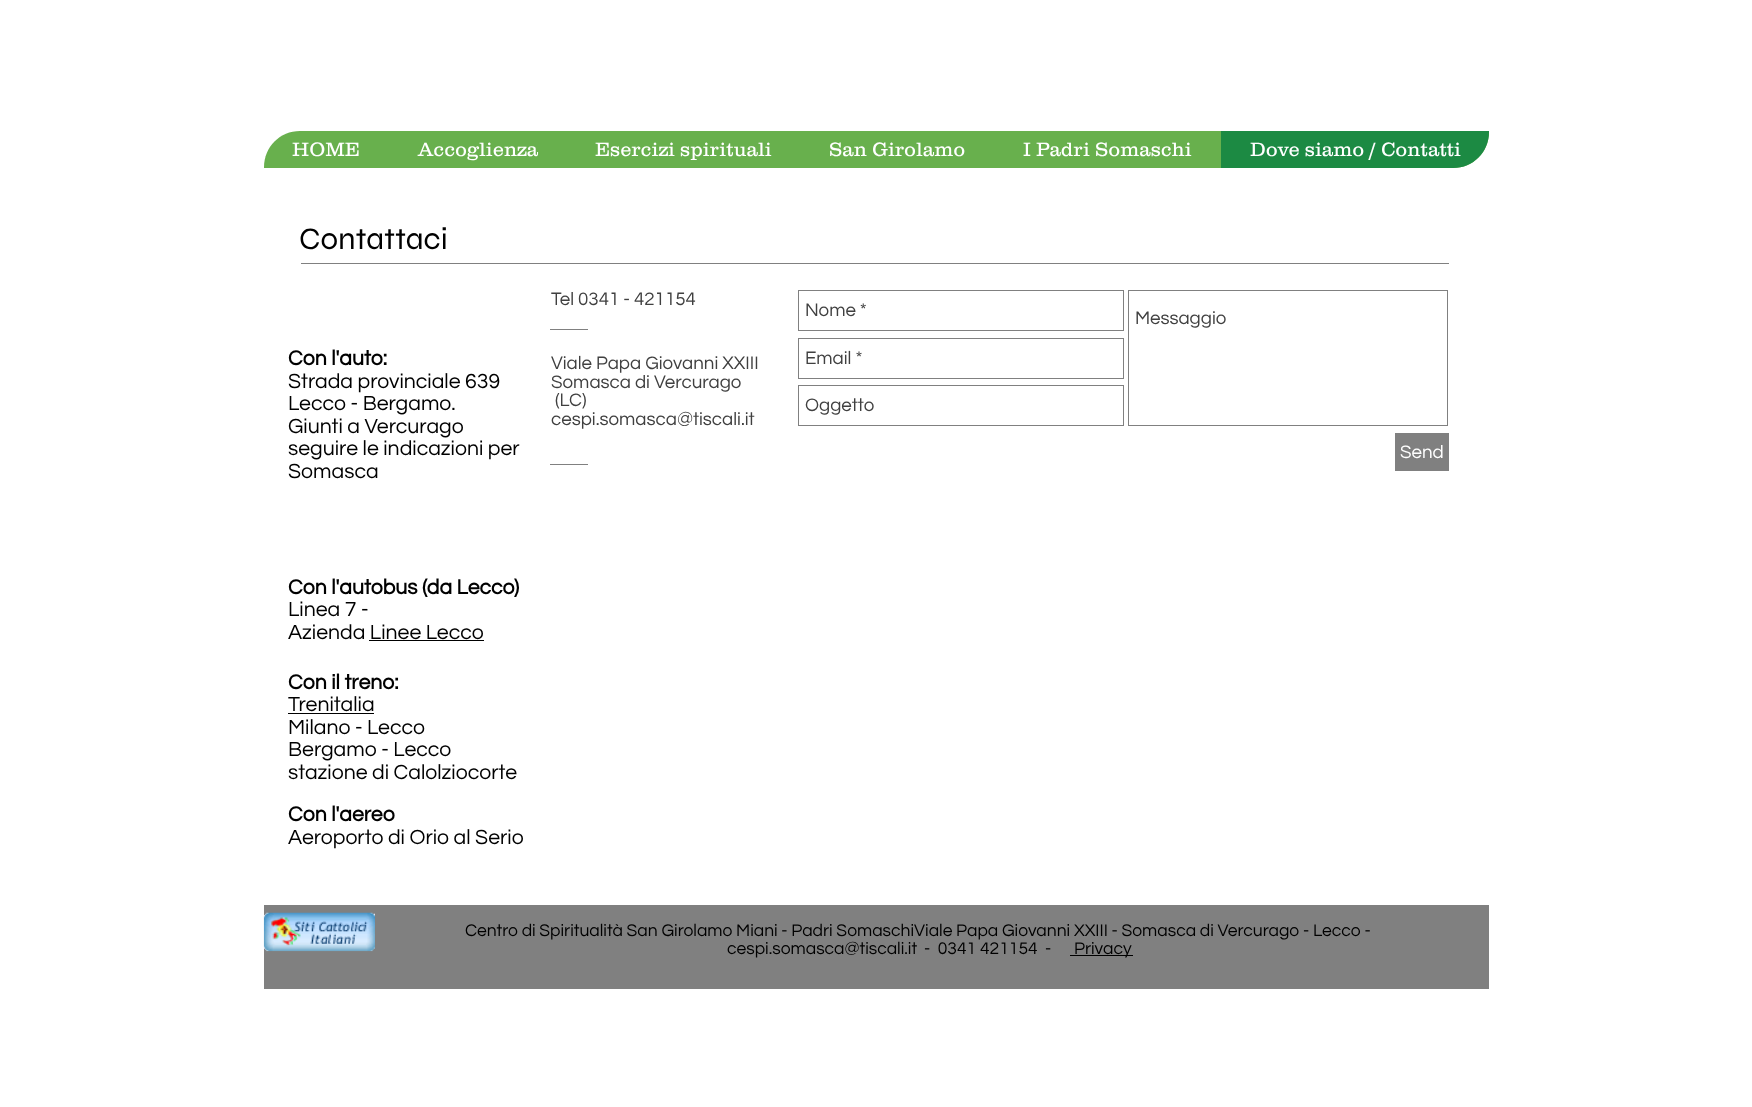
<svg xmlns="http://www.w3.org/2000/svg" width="1752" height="1107">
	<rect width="100%" height="100%" fill="#FFFFFF" />
	<path d="M300 131H1489V132C1489 152 1473 168 1453 168H264V167C264 147 280 131 300 131Z" fill="#68B04D" />
	<g font-family="'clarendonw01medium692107'" font-size="20" font-weight="300" fill="#FFFFFF">
		<text x="292" y="156">HOME</text>
		<text x="418" y="156">Accoglienza</text>
		<text x="595" y="156">Esercizi spirituali</text>
		<text x="829" y="156">San Girolamo</text>
		<text x="1023" y="156">I Padri Somaschi</text>
	</g>
	<path d="M1220 131H1489V132C1489 152 1473 168 1453 168H1220Z" fill="#1C8A43" />
	<rect x="1220" y="131" width="1" height="37" fill="#68B04D" />
	<text x="1250" y="156" font-family="'clarendonw01medium692107'" font-size="20" font-weight="300" fill="#FFFFFF">Dove siamo / Contatti</text>
	<text x="299" y="249" font-family="Syne" font-size="31.25" fill="#000000">Contattaci</text>
	<rect x="301" y="263" width="1148" height="1" fill="#808080" />
	<text x="551" y="305" font-family="Questrial" font-size="18.75" fill="#404040">Tel 0341 - 421154</text>
	<rect x="550" y="329" width="38" height="1" fill="#808080" />
	<rect x="798.5" y="290.5" width="325" height="40" fill="none" stroke="#808080" />
	<text x="805" y="316" font-family="Questrial" font-size="18.75" fill="#404040">Nome *</text>
	<rect x="1128.5" y="290.5" width="319" height="135" fill="none" stroke="#808080" />
	<text x="1135" y="324" font-family="Questrial" font-size="18.75" fill="#404040">Messaggio</text>
	<rect x="798.5" y="338.5" width="325" height="40" fill="none" stroke="#808080" />
	<text x="805" y="364" font-family="Questrial" font-size="18.75" fill="#404040">Email *</text>
	<rect x="798.5" y="385.5" width="325" height="40" fill="none" stroke="#808080" />
	<text x="805" y="411" font-family="Questrial" font-size="18.75" fill="#404040">Oggetto</text>
	<rect x="1395" y="433" width="54" height="38" fill="#808080" />
	<text x="1400" y="458" font-family="Questrial" font-size="18.75" fill="#FFFFFF">Send</text>
	<text x="288" y="365" font-family="Questrial" font-size="21.25" font-weight="700" fill="#000000">Con l'auto:</text>
	<g font-family="Questrial" font-size="21.25" fill="#000000">
		<text x="288" y="388">Strada provinciale 639</text>
		<text x="288" y="410">Lecco - Bergamo.</text>
		<text x="288" y="433">Giunti a Vercurago</text>
		<text x="288" y="455">seguire le indicazioni per</text>
		<text x="288" y="478">Somasca</text>
	</g>
	<g font-family="Questrial" font-size="18.75" fill="#404040">
		<text x="551" y="369">Viale Papa Giovanni XXIII</text>
		<text x="551" y="388">Somasca di Vercurago</text>
		<text x="555" y="406">(LC)</text>
		<text x="551" y="425">cespi.somasca@tiscali.it</text>
	</g>
	<rect x="550" y="464" width="38" height="1" fill="#808080" />
	<text x="288" y="594" font-family="Questrial" font-size="21.25" font-weight="700" fill="#000000">Con l'autobus (da Lecco)</text>
	<g font-family="Questrial" font-size="21.25" fill="#000000">
		<text x="288" y="616">Linea 7 -</text>
		<text x="288" y="639">Azienda Linee Lecco</text>
	</g>
	<rect x="369" y="640" width="115" height="1" fill="#000000" />
	<text x="288" y="689" font-family="Questrial" font-size="21.25" font-weight="700" fill="#000000">Con il treno:</text>
	<text x="288" y="711" font-family="Questrial" font-size="21.25" fill="#000000">Trenitalia</text>
	<rect x="288" y="713" width="86" height="1" fill="#000000" />
	<g font-family="Questrial" font-size="21.25" fill="#000000">
		<text x="288" y="734">Milano - Lecco</text>
		<text x="288" y="756">Bergamo - Lecco</text>
		<text x="288" y="779">stazione di Calolziocorte</text>
	</g>
	<text x="288" y="821" font-family="Questrial" font-size="21.25" font-weight="700" fill="#000000">Con l'aereo</text>
	<text x="288" y="844" font-family="Questrial" font-size="21.25" fill="#000000">Aeroporto di Orio al Serio</text>
	<rect x="264" y="905" width="1225" height="84" fill="#808080" />
	<image x="263" y="912" width="112" height="40" href="assets/img1.png" />
	<g font-family="Questrial" font-size="17.5" fill="#000000">
		<text x="465" y="936">Centro di Spiritualità San Girolamo Miani - Padri SomaschiViale Papa Giovanni XXIII - Somasca di Vercurago - Lecco -</text>
		<text x="727" y="954">cespi.somasca@tiscali.it</text>
		<text x="924" y="954" xml:space="preserve">-  0341 421154  -</text>
	</g>
	<rect x="1070" y="955" width="63" height="1" fill="#000000" />
	<text x="1074" y="954" font-family="Questrial" font-size="17.5" fill="#000000">Privacy</text>
</svg>
